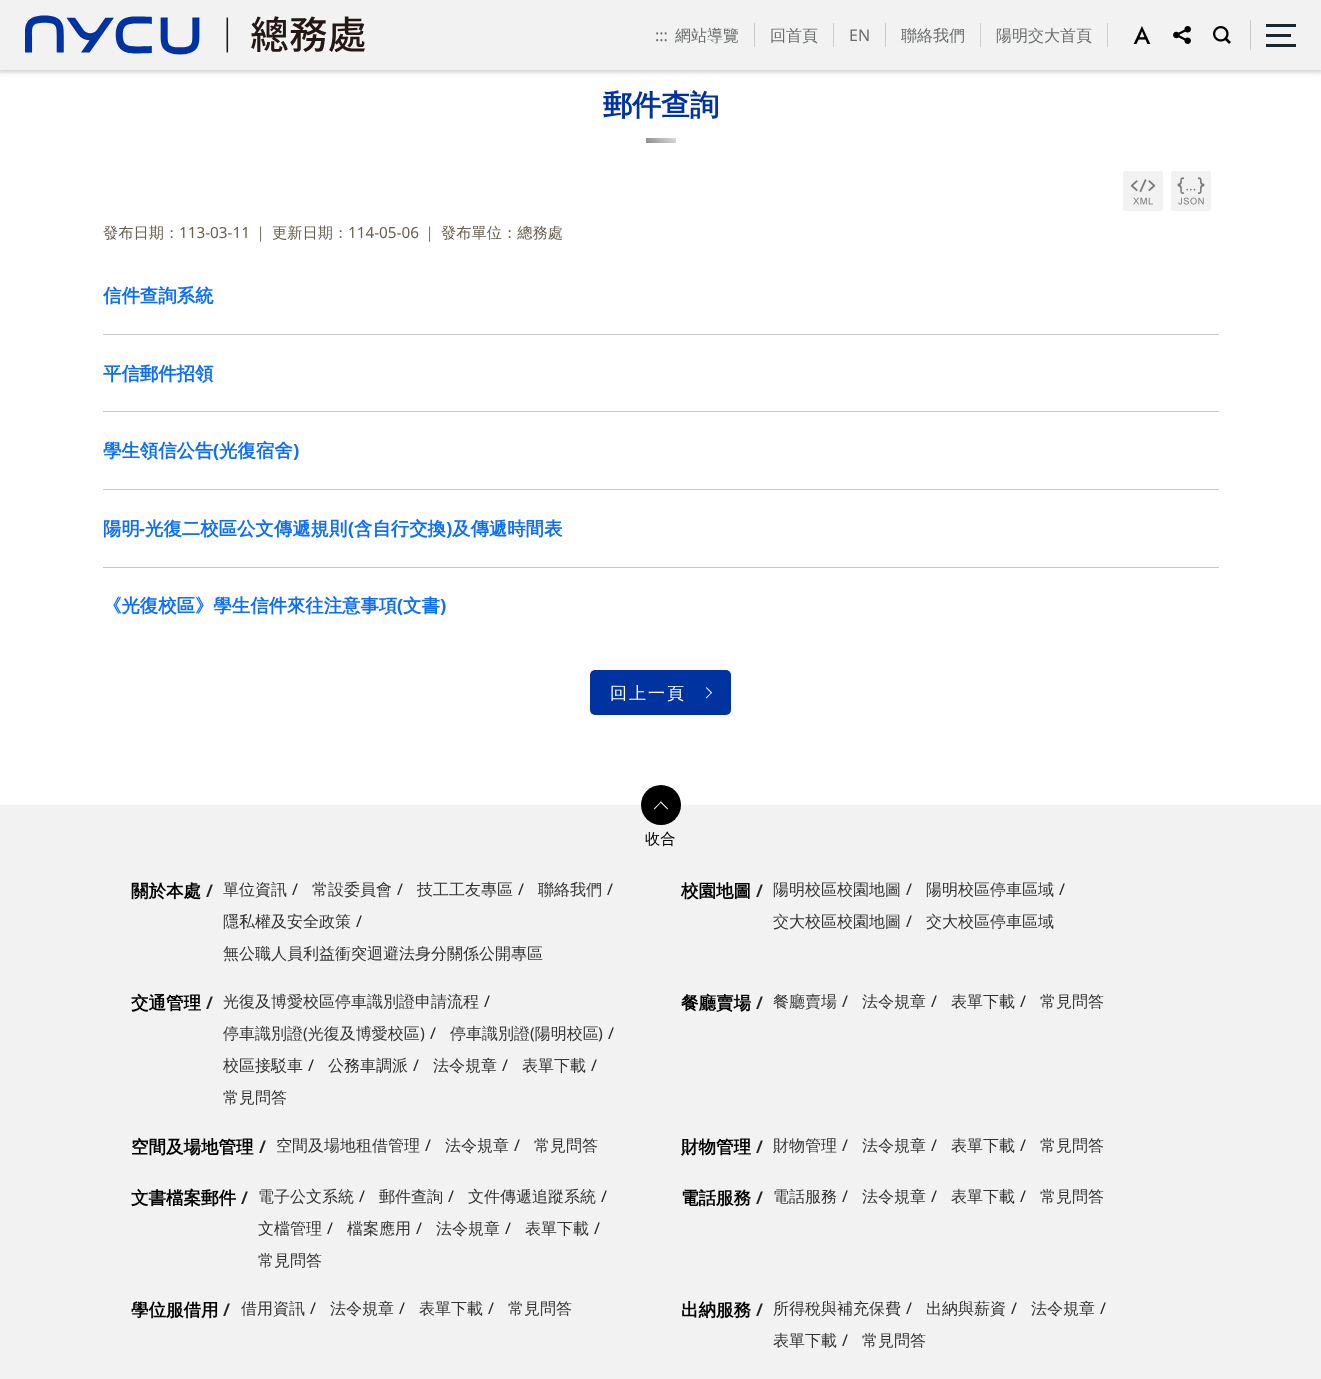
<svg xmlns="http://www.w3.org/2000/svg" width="1321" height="1379">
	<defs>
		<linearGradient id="g1" gradientUnits="userSpaceOnUse" x1="652" y1="149" x2="670" y2="132"><stop offset="0" stop-color="#8A8D8F" /><stop offset="1" stop-color="#DCDCDC" /></linearGradient>
	</defs>
	<rect width="100%" height="100%" fill="#FFFFFF" />
	<rect x="-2" y="-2" width="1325" height="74" fill="#000000" fill-opacity="0.2" filter="blur(2.5px)" />
	<rect x="0" y="0" width="1321" height="70" fill="#F2F2F2" />
	<image x="25" y="15" width="340" height="40" href="assets/img1.png" />
	<text x="655" y="41" font-family="Noto Sans" font-size="16" fill="#6A6D6E">:::</text>
	<rect x="754" y="23" width="1" height="24" fill="#CCCCCC" />
	<text x="675" y="41" font-family="WenQuanYi Zen Hei" font-size="16" font-weight="500" fill="#6A6D6E">網站導覽</text>
	<rect x="833" y="23" width="1" height="24" fill="#CCCCCC" />
	<text x="770" y="41" font-family="WenQuanYi Zen Hei" font-size="16" font-weight="500" fill="#6A6D6E">回首頁</text>
	<rect x="885" y="23" width="1" height="24" fill="#CCCCCC" />
	<text x="849" y="41" font-family="Noto Sans" font-size="16" fill="#6A6D6E">EN</text>
	<rect x="980" y="23" width="1" height="24" fill="#CCCCCC" />
	<text x="901" y="41" font-family="WenQuanYi Zen Hei" font-size="16" font-weight="500" fill="#6A6D6E">聯絡我們</text>
	<rect x="1107" y="23" width="1" height="24" fill="#CCCCCC" />
	<text x="996" y="41" font-family="WenQuanYi Zen Hei" font-size="16" font-weight="500" fill="#6A6D6E">陽明交大首頁</text>
	<image x="1133" y="26" width="18" height="18" href="assets/img2.png" />
	<image x="1173" y="26" width="18" height="18" href="assets/img3.png" />
	<rect x="1250" y="20" width="1" height="30" fill="#CCCCCC" />
	<image x="1213" y="26" width="18" height="18" href="assets/img4.png" />
	<rect x="1266" y="34" width="25" height="3" fill="#182631" />
	<rect x="1266" y="24" width="30" height="3" fill="#182631" />
	<rect x="1266" y="44" width="30" height="3" fill="#182631" />
	<text x="603" y="115" font-family="WenQuanYi Zen Hei" font-size="29" font-weight="700" fill="#0033A0">郵件查詢</text>
	<rect x="646" y="138" width="30" height="5" fill="url(#g1)" />
	<rect x="1123" y="171" width="40" height="40" rx="2" fill="#F2F2F2" />
	<image x="1130" y="179" width="26" height="26" href="assets/img5.png" />
	<rect x="1171" y="171" width="40" height="40" rx="2" fill="#F2F2F2" />
	<image x="1177" y="177" width="28" height="28" href="assets/img6.png" />
	<text x="103" y="238" font-family="WenQuanYi Zen Hei" font-size="15.25" font-weight="500" fill="#685F51">發布日期：</text>
	<text x="179" y="238" font-family="Noto Sans" font-size="15.25" fill="#685F51">113-03-11</text>
	<g font-family="WenQuanYi Zen Hei" font-size="15.25" font-weight="500" fill="#685F51">
		<text x="253" y="238">｜</text>
		<text x="272" y="238">更新日期：</text>
	</g>
	<text x="348" y="238" font-family="Noto Sans" font-size="15.25" fill="#685F51">114-05-06</text>
	<g font-family="WenQuanYi Zen Hei" font-size="15.25" font-weight="500" fill="#685F51">
		<text x="422" y="238">｜</text>
		<text x="441" y="238">發布單位：總務處</text>
	</g>
	<text x="103" y="302" font-family="WenQuanYi Zen Hei" font-size="18.4" font-weight="700" fill="#0D6EFD">信件查詢系統</text>
	<rect x="103" y="334" width="1116" height="1" fill="#C8C9CA" />
	<text x="103" y="380" font-family="WenQuanYi Zen Hei" font-size="18.4" font-weight="700" fill="#0D6EFD">平信郵件招領</text>
	<rect x="103" y="411" width="1116" height="1" fill="#C8C9CA" />
	<text x="103" y="457" font-family="WenQuanYi Zen Hei" font-size="18.4" font-weight="700" fill="#0D6EFD">學生領信公告</text>
	<text x="213" y="457" font-family="Noto Sans" font-size="18.4" font-weight="700" fill="#0D6EFD">(</text>
	<text x="219" y="457" font-family="WenQuanYi Zen Hei" font-size="18.4" font-weight="700" fill="#0D6EFD">光復宿舍</text>
	<text x="293" y="457" font-family="Noto Sans" font-size="18.4" font-weight="700" fill="#0D6EFD">)</text>
	<rect x="103" y="489" width="1116" height="1" fill="#C8C9CA" />
	<text x="103" y="535" font-family="WenQuanYi Zen Hei" font-size="18.4" font-weight="700" fill="#0D6EFD">陽明</text>
	<text x="139" y="535" font-family="Noto Sans" font-size="18.4" font-weight="700" fill="#0D6EFD">-</text>
	<text x="145" y="535" font-family="WenQuanYi Zen Hei" font-size="18.4" font-weight="700" fill="#0D6EFD">光復二校區公文傳遞規則</text>
	<text x="348" y="535" font-family="Noto Sans" font-size="18.4" font-weight="700" fill="#0D6EFD">(</text>
	<text x="354" y="535" font-family="WenQuanYi Zen Hei" font-size="18.4" font-weight="700" fill="#0D6EFD">含自行交換</text>
	<text x="446" y="535" font-family="Noto Sans" font-size="18.4" font-weight="700" fill="#0D6EFD">)</text>
	<text x="452" y="535" font-family="WenQuanYi Zen Hei" font-size="18.4" font-weight="700" fill="#0D6EFD">及傳遞時間表</text>
	<rect x="103" y="567" width="1116" height="1" fill="#C8C9CA" />
	<text x="103" y="612" font-family="WenQuanYi Zen Hei" font-size="18.4" font-weight="700" fill="#0D6EFD">《光復校區》學生信件來往注意事項</text>
	<text x="397" y="612" font-family="Noto Sans" font-size="18.4" font-weight="700" fill="#0D6EFD">(</text>
	<text x="403" y="612" font-family="WenQuanYi Zen Hei" font-size="18.4" font-weight="700" fill="#0D6EFD">文書</text>
	<text x="440" y="612" font-family="Noto Sans" font-size="18.4" font-weight="700" fill="#0D6EFD">)</text>
	<rect x="590" y="670" width="141" height="45" rx="5" fill="#0033A0" />
	<text x="610" y="699" font-family="WenQuanYi Zen Hei" font-size="17" font-weight="500" letter-spacing="2" fill="#FFFFFF">回上一頁</text>
	<path d="M706.5 687L712 692.5L711.5 693.5L706 688Z" fill="#FFFFFF" />
	<path d="M711.5 692L712 692.5L706.5 698.5L706 697.5Z" fill="#FFFFFF" />
	<rect x="0" y="805" width="1321" height="574" fill="#F2F2F2" />
	<circle cx="661" cy="805" r="20" fill="#000000" />
	<path d="M661 801.5L668 808.5L667.5 809.5L660 802Z" fill="#FFFFFF" />
	<path d="M661 801.5L661.5 802L654.5 809.5L654 808.5Z" fill="#FFFFFF" />
	<text x="645" y="844" font-family="WenQuanYi Zen Hei" font-size="15.25" font-weight="500" fill="#000000">收合</text>
	<text x="131" y="897" font-family="WenQuanYi Zen Hei" font-size="17.5" font-weight="700" fill="#000000">關於本處</text>
	<text x="206" y="897" font-family="Noto Sans" font-size="17.5" font-weight="600" fill="#212529">/</text>
	<text x="223" y="895" font-family="WenQuanYi Zen Hei" font-size="16" font-weight="500" fill="#333333">單位資訊</text>
	<text x="292" y="895" font-family="Noto Sans" font-size="16" fill="#212529">/</text>
	<text x="312" y="895" font-family="WenQuanYi Zen Hei" font-size="16" font-weight="500" fill="#333333">常設委員會</text>
	<text x="397" y="895" font-family="Noto Sans" font-size="16" fill="#212529">/</text>
	<text x="417" y="895" font-family="WenQuanYi Zen Hei" font-size="16" font-weight="500" fill="#333333">技工工友專區</text>
	<text x="518" y="895" font-family="Noto Sans" font-size="16" fill="#212529">/</text>
	<text x="538" y="895" font-family="WenQuanYi Zen Hei" font-size="16" font-weight="500" fill="#333333">聯絡我們</text>
	<text x="607" y="895" font-family="Noto Sans" font-size="16" fill="#212529">/</text>
	<text x="223" y="927" font-family="WenQuanYi Zen Hei" font-size="16" font-weight="500" fill="#333333">隱私權及安全政策</text>
	<text x="356" y="927" font-family="Noto Sans" font-size="16" fill="#212529">/</text>
	<text x="223" y="959" font-family="WenQuanYi Zen Hei" font-size="16" font-weight="500" fill="#333333">無公職人員利益衝突迴避法身分關係公開專區</text>
	<text x="681" y="897" font-family="WenQuanYi Zen Hei" font-size="17.5" font-weight="700" fill="#000000">校園地圖</text>
	<text x="756" y="897" font-family="Noto Sans" font-size="17.5" font-weight="600" fill="#212529">/</text>
	<text x="773" y="895" font-family="WenQuanYi Zen Hei" font-size="16" font-weight="500" fill="#333333">陽明校區校園地圖</text>
	<text x="906" y="895" font-family="Noto Sans" font-size="16" fill="#212529">/</text>
	<text x="926" y="895" font-family="WenQuanYi Zen Hei" font-size="16" font-weight="500" fill="#333333">陽明校區停車區域</text>
	<text x="1059" y="895" font-family="Noto Sans" font-size="16" fill="#212529">/</text>
	<text x="773" y="927" font-family="WenQuanYi Zen Hei" font-size="16" font-weight="500" fill="#333333">交大校區校園地圖</text>
	<text x="906" y="927" font-family="Noto Sans" font-size="16" fill="#212529">/</text>
	<text x="926" y="927" font-family="WenQuanYi Zen Hei" font-size="16" font-weight="500" fill="#333333">交大校區停車區域</text>
	<text x="131" y="1009" font-family="WenQuanYi Zen Hei" font-size="17.5" font-weight="700" fill="#000000">交通管理</text>
	<text x="206" y="1009" font-family="Noto Sans" font-size="17.5" font-weight="600" fill="#212529">/</text>
	<text x="223" y="1007" font-family="WenQuanYi Zen Hei" font-size="16" font-weight="500" fill="#333333">光復及博愛校區停車識別證申請流程</text>
	<text x="484" y="1007" font-family="Noto Sans" font-size="16" fill="#212529">/</text>
	<text x="223" y="1039" font-family="WenQuanYi Zen Hei" font-size="16" font-weight="500" fill="#333333">停車識別證 光復及博愛校區</text>
	<g font-family="Noto Sans" font-size="16" fill="#333333">
		<text x="303" y="1039">(</text>
		<text x="420" y="1039">)</text>
	</g>
	<text x="430" y="1039" font-family="Noto Sans" font-size="16" fill="#212529">/</text>
	<text x="450" y="1039" font-family="WenQuanYi Zen Hei" font-size="16" font-weight="500" fill="#333333">停車識別證 陽明校區</text>
	<g font-family="Noto Sans" font-size="16" fill="#333333">
		<text x="530" y="1039">(</text>
		<text x="598" y="1039">)</text>
	</g>
	<text x="608" y="1039" font-family="Noto Sans" font-size="16" fill="#212529">/</text>
	<text x="223" y="1071" font-family="WenQuanYi Zen Hei" font-size="16" font-weight="500" fill="#333333">校區接駁車</text>
	<text x="308" y="1071" font-family="Noto Sans" font-size="16" fill="#212529">/</text>
	<text x="328" y="1071" font-family="WenQuanYi Zen Hei" font-size="16" font-weight="500" fill="#333333">公務車調派</text>
	<text x="413" y="1071" font-family="Noto Sans" font-size="16" fill="#212529">/</text>
	<text x="433" y="1071" font-family="WenQuanYi Zen Hei" font-size="16" font-weight="500" fill="#333333">法令規章</text>
	<text x="502" y="1071" font-family="Noto Sans" font-size="16" fill="#212529">/</text>
	<text x="522" y="1071" font-family="WenQuanYi Zen Hei" font-size="16" font-weight="500" fill="#333333">表單下載</text>
	<text x="591" y="1071" font-family="Noto Sans" font-size="16" fill="#212529">/</text>
	<text x="223" y="1103" font-family="WenQuanYi Zen Hei" font-size="16" font-weight="500" fill="#333333">常見問答</text>
	<text x="681" y="1009" font-family="WenQuanYi Zen Hei" font-size="17.5" font-weight="700" fill="#000000">餐廳賣場</text>
	<text x="756" y="1009" font-family="Noto Sans" font-size="17.5" font-weight="600" fill="#212529">/</text>
	<text x="773" y="1007" font-family="WenQuanYi Zen Hei" font-size="16" font-weight="500" fill="#333333">餐廳賣場</text>
	<text x="842" y="1007" font-family="Noto Sans" font-size="16" fill="#212529">/</text>
	<text x="862" y="1007" font-family="WenQuanYi Zen Hei" font-size="16" font-weight="500" fill="#333333">法令規章</text>
	<text x="931" y="1007" font-family="Noto Sans" font-size="16" fill="#212529">/</text>
	<text x="951" y="1007" font-family="WenQuanYi Zen Hei" font-size="16" font-weight="500" fill="#333333">表單下載</text>
	<text x="1020" y="1007" font-family="Noto Sans" font-size="16" fill="#212529">/</text>
	<text x="1040" y="1007" font-family="WenQuanYi Zen Hei" font-size="16" font-weight="500" fill="#333333">常見問答</text>
	<text x="131" y="1153" font-family="WenQuanYi Zen Hei" font-size="17.5" font-weight="700" fill="#000000">空間及場地管理</text>
	<text x="259" y="1153" font-family="Noto Sans" font-size="17.5" font-weight="600" fill="#212529">/</text>
	<text x="276" y="1151" font-family="WenQuanYi Zen Hei" font-size="16" font-weight="500" fill="#333333">空間及場地租借管理</text>
	<text x="425" y="1151" font-family="Noto Sans" font-size="16" fill="#212529">/</text>
	<text x="445" y="1151" font-family="WenQuanYi Zen Hei" font-size="16" font-weight="500" fill="#333333">法令規章</text>
	<text x="514" y="1151" font-family="Noto Sans" font-size="16" fill="#212529">/</text>
	<text x="534" y="1151" font-family="WenQuanYi Zen Hei" font-size="16" font-weight="500" fill="#333333">常見問答</text>
	<text x="681" y="1153" font-family="WenQuanYi Zen Hei" font-size="17.5" font-weight="700" fill="#000000">財物管理</text>
	<text x="756" y="1153" font-family="Noto Sans" font-size="17.5" font-weight="600" fill="#212529">/</text>
	<text x="773" y="1151" font-family="WenQuanYi Zen Hei" font-size="16" font-weight="500" fill="#333333">財物管理</text>
	<text x="842" y="1151" font-family="Noto Sans" font-size="16" fill="#212529">/</text>
	<text x="862" y="1151" font-family="WenQuanYi Zen Hei" font-size="16" font-weight="500" fill="#333333">法令規章</text>
	<text x="931" y="1151" font-family="Noto Sans" font-size="16" fill="#212529">/</text>
	<text x="951" y="1151" font-family="WenQuanYi Zen Hei" font-size="16" font-weight="500" fill="#333333">表單下載</text>
	<text x="1020" y="1151" font-family="Noto Sans" font-size="16" fill="#212529">/</text>
	<text x="1040" y="1151" font-family="WenQuanYi Zen Hei" font-size="16" font-weight="500" fill="#333333">常見問答</text>
	<text x="131" y="1204" font-family="WenQuanYi Zen Hei" font-size="17.5" font-weight="700" fill="#000000">文書檔案郵件</text>
	<text x="241" y="1204" font-family="Noto Sans" font-size="17.5" font-weight="600" fill="#212529">/</text>
	<text x="258" y="1202" font-family="WenQuanYi Zen Hei" font-size="16" font-weight="500" fill="#333333">電子公文系統</text>
	<text x="359" y="1202" font-family="Noto Sans" font-size="16" fill="#212529">/</text>
	<text x="379" y="1202" font-family="WenQuanYi Zen Hei" font-size="16" font-weight="500" fill="#333333">郵件查詢</text>
	<text x="448" y="1202" font-family="Noto Sans" font-size="16" fill="#212529">/</text>
	<text x="468" y="1202" font-family="WenQuanYi Zen Hei" font-size="16" font-weight="500" fill="#333333">文件傳遞追蹤系統</text>
	<text x="601" y="1202" font-family="Noto Sans" font-size="16" fill="#212529">/</text>
	<text x="258" y="1234" font-family="WenQuanYi Zen Hei" font-size="16" font-weight="500" fill="#333333">文檔管理</text>
	<text x="327" y="1234" font-family="Noto Sans" font-size="16" fill="#212529">/</text>
	<text x="347" y="1234" font-family="WenQuanYi Zen Hei" font-size="16" font-weight="500" fill="#333333">檔案應用</text>
	<text x="416" y="1234" font-family="Noto Sans" font-size="16" fill="#212529">/</text>
	<text x="436" y="1234" font-family="WenQuanYi Zen Hei" font-size="16" font-weight="500" fill="#333333">法令規章</text>
	<text x="505" y="1234" font-family="Noto Sans" font-size="16" fill="#212529">/</text>
	<text x="525" y="1234" font-family="WenQuanYi Zen Hei" font-size="16" font-weight="500" fill="#333333">表單下載</text>
	<text x="594" y="1234" font-family="Noto Sans" font-size="16" fill="#212529">/</text>
	<text x="258" y="1266" font-family="WenQuanYi Zen Hei" font-size="16" font-weight="500" fill="#333333">常見問答</text>
	<text x="681" y="1204" font-family="WenQuanYi Zen Hei" font-size="17.5" font-weight="700" fill="#000000">電話服務</text>
	<text x="756" y="1204" font-family="Noto Sans" font-size="17.5" font-weight="600" fill="#212529">/</text>
	<text x="773" y="1202" font-family="WenQuanYi Zen Hei" font-size="16" font-weight="500" fill="#333333">電話服務</text>
	<text x="842" y="1202" font-family="Noto Sans" font-size="16" fill="#212529">/</text>
	<text x="862" y="1202" font-family="WenQuanYi Zen Hei" font-size="16" font-weight="500" fill="#333333">法令規章</text>
	<text x="931" y="1202" font-family="Noto Sans" font-size="16" fill="#212529">/</text>
	<text x="951" y="1202" font-family="WenQuanYi Zen Hei" font-size="16" font-weight="500" fill="#333333">表單下載</text>
	<text x="1020" y="1202" font-family="Noto Sans" font-size="16" fill="#212529">/</text>
	<text x="1040" y="1202" font-family="WenQuanYi Zen Hei" font-size="16" font-weight="500" fill="#333333">常見問答</text>
	<text x="131" y="1316" font-family="WenQuanYi Zen Hei" font-size="17.5" font-weight="700" fill="#000000">學位服借用</text>
	<text x="223" y="1316" font-family="Noto Sans" font-size="17.5" font-weight="600" fill="#212529">/</text>
	<text x="241" y="1314" font-family="WenQuanYi Zen Hei" font-size="16" font-weight="500" fill="#333333">借用資訊</text>
	<text x="310" y="1314" font-family="Noto Sans" font-size="16" fill="#212529">/</text>
	<text x="330" y="1314" font-family="WenQuanYi Zen Hei" font-size="16" font-weight="500" fill="#333333">法令規章</text>
	<text x="399" y="1314" font-family="Noto Sans" font-size="16" fill="#212529">/</text>
	<text x="419" y="1314" font-family="WenQuanYi Zen Hei" font-size="16" font-weight="500" fill="#333333">表單下載</text>
	<text x="488" y="1314" font-family="Noto Sans" font-size="16" fill="#212529">/</text>
	<text x="508" y="1314" font-family="WenQuanYi Zen Hei" font-size="16" font-weight="500" fill="#333333">常見問答</text>
	<text x="681" y="1316" font-family="WenQuanYi Zen Hei" font-size="17.5" font-weight="700" fill="#000000">出納服務</text>
	<text x="756" y="1316" font-family="Noto Sans" font-size="17.5" font-weight="600" fill="#212529">/</text>
	<text x="773" y="1314" font-family="WenQuanYi Zen Hei" font-size="16" font-weight="500" fill="#333333">所得稅與補充保費</text>
	<text x="906" y="1314" font-family="Noto Sans" font-size="16" fill="#212529">/</text>
	<text x="926" y="1314" font-family="WenQuanYi Zen Hei" font-size="16" font-weight="500" fill="#333333">出納與薪資</text>
	<text x="1011" y="1314" font-family="Noto Sans" font-size="16" fill="#212529">/</text>
	<text x="1031" y="1314" font-family="WenQuanYi Zen Hei" font-size="16" font-weight="500" fill="#333333">法令規章</text>
	<text x="1100" y="1314" font-family="Noto Sans" font-size="16" fill="#212529">/</text>
	<text x="773" y="1346" font-family="WenQuanYi Zen Hei" font-size="16" font-weight="500" fill="#333333">表單下載</text>
	<text x="842" y="1346" font-family="Noto Sans" font-size="16" fill="#212529">/</text>
	<text x="862" y="1346" font-family="WenQuanYi Zen Hei" font-size="16" font-weight="500" fill="#333333">常見問答</text>
</svg>
